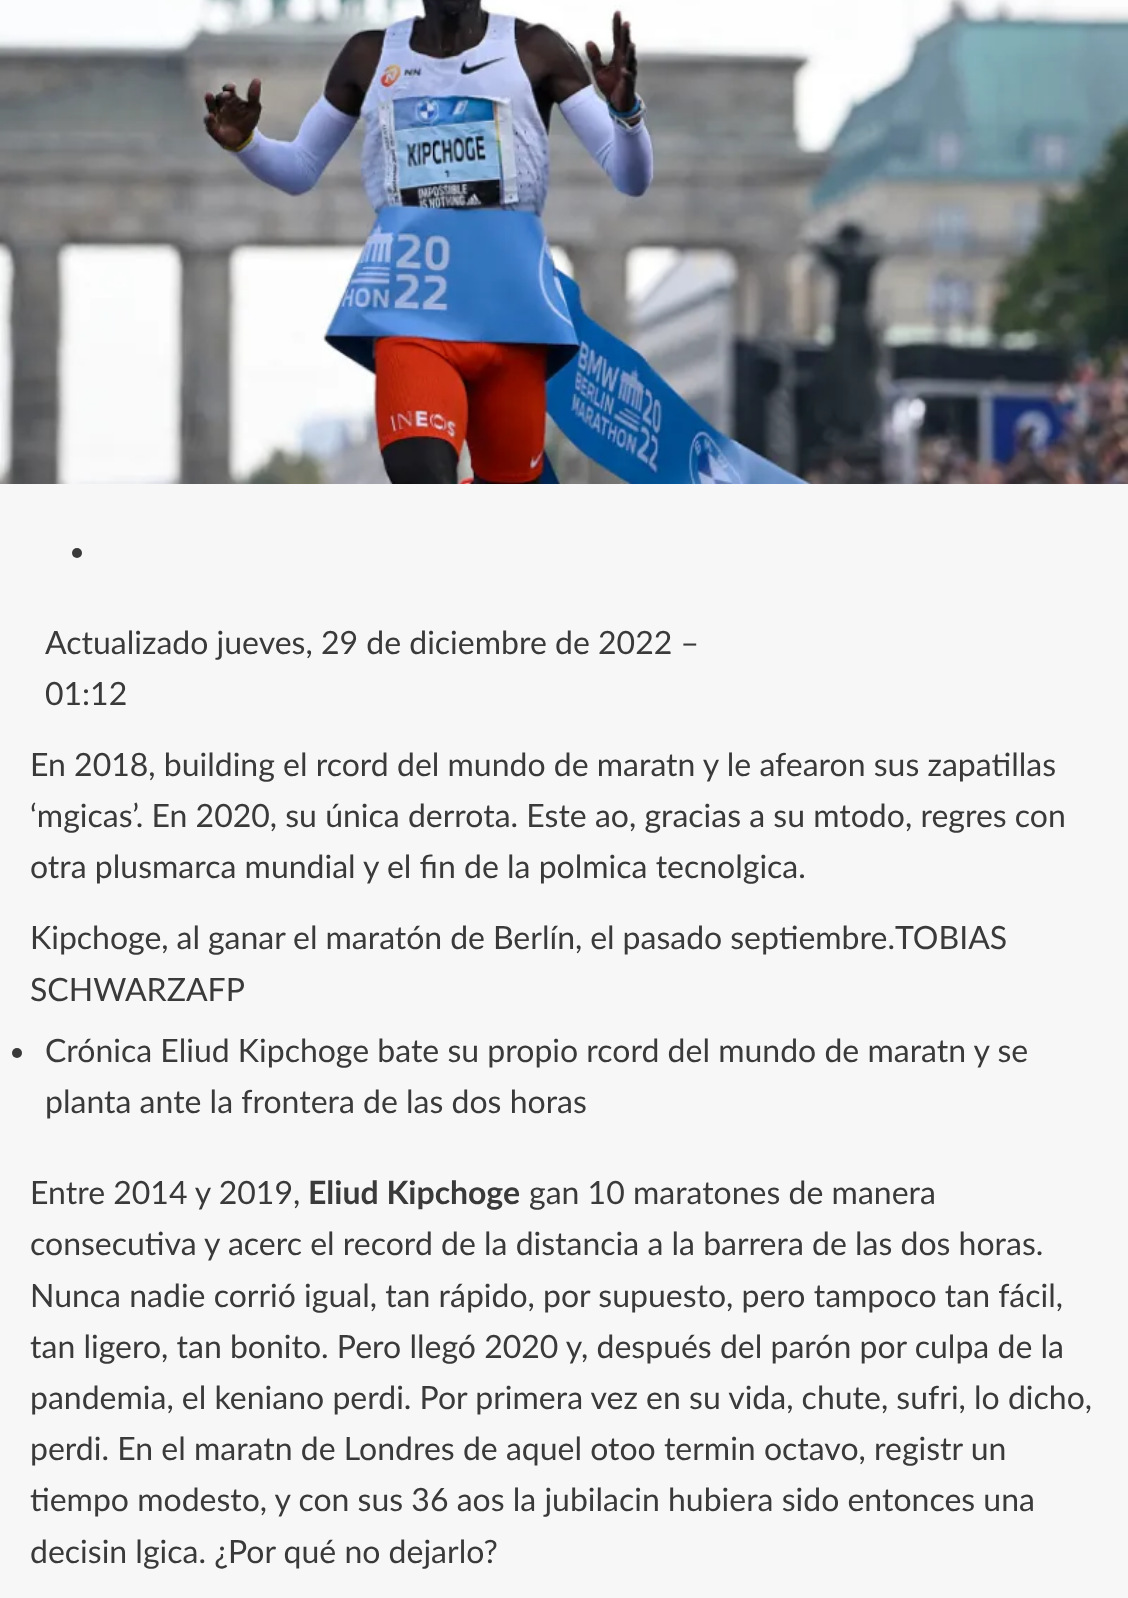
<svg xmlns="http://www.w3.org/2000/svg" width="1128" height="1598">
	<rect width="100%" height="100%" fill="#F7F7F7" />
	<image x="0" y="0" width="1128" height="484" href="assets/img1.png" />
	<circle cx="77" cy="553" r="5" fill="#3A3A3A" />
	<g font-family="Lato" font-size="32" fill="#3A3A3A">
		<text x="45" y="654">Actualizado jueves, 29 de diciembre de 2022 –</text>
		<text x="45" y="705">01:12</text>
		<text x="30" y="776">En 2018, building el rcord del mundo de maratn y le afearon sus zapatillas</text>
		<text x="30" y="827">‘mgicas’. En 2020, su única derrota. Este ao, gracias a su mtodo, regres con</text>
		<text x="30" y="878">otra plusmarca mundial y el fin de la polmica tecnolgica.</text>
		<text x="30" y="949" word-spacing="-0.25">Kipchoge, al ganar el maratón de Berlín, el pasado septiembre.</text>
		<text x="895" y="949">TOBIAS</text>
		<text x="30" y="1001">SCHWARZAFP</text>
	</g>
	<circle cx="17" cy="1053" r="5" fill="#3A3A3A" />
	<g font-family="Lato" font-size="32" fill="#3A3A3A">
		<text x="45" y="1062">Crónica Eliud Kipchoge bate su propio rcord del mundo de maratn y se</text>
		<text x="45" y="1113">planta ante la frontera de las dos horas</text>
		<text x="30" y="1204">Entre 2014 y 2019,</text>
	</g>
	<text x="308" y="1204" font-family="Lato" font-size="32" font-weight="700" fill="#3A3A3A">Eliud Kipchoge</text>
	<g font-family="Lato" font-size="32" fill="#3A3A3A">
		<text x="529" y="1204">gan 10 maratones de manera</text>
		<text x="30" y="1255">consecutiva y acerc el record de la distancia a la barrera de las dos horas.</text>
		<text x="30" y="1307">Nunca nadie corrió igual, tan rápido, por supuesto, pero tampoco tan fácil,</text>
		<text x="30" y="1358">tan ligero, tan bonito. Pero llegó 2020 y, después del parón por culpa de la</text>
		<text x="30" y="1409">pandemia, el keniano perdi. Por primera vez en su vida, chute, sufri, lo dicho,</text>
		<text x="30" y="1460">perdi. En el maratn de Londres de aquel otoo termin octavo, registr un</text>
		<text x="30" y="1511">tiempo modesto, y con sus 36 aos la jubilacin hubiera sido entonces una</text>
		<text x="30" y="1563">decisin lgica. ¿Por qué no dejarlo?</text>
	</g>
</svg>
